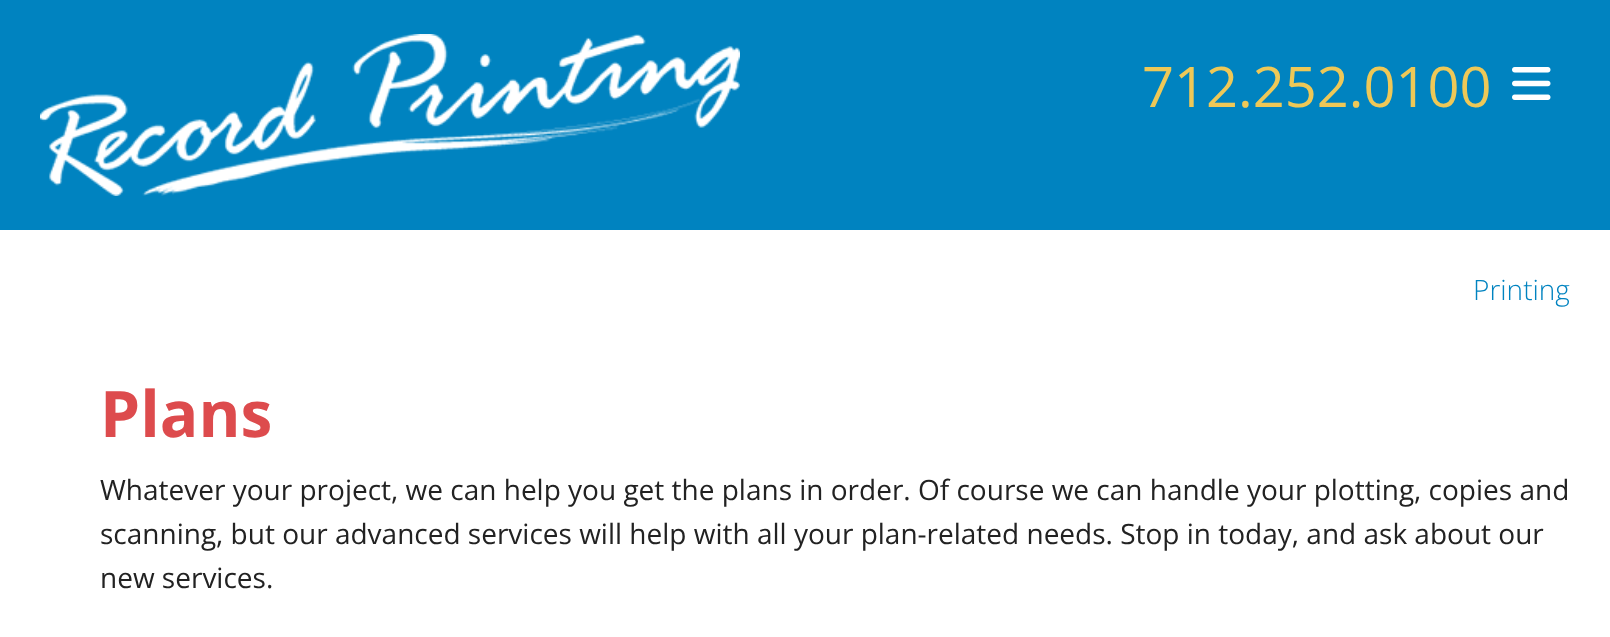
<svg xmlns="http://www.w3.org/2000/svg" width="1610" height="637">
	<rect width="100%" height="100%" fill="#0083C0" />
	<image x="40" y="34" width="700" height="162" href="assets/img1.png" />
	<text x="1142" y="107" font-family="Open Sans" font-size="56" fill="#EEC857">712.252.0100</text>
	<image x="1512" y="67" width="39" height="33" href="assets/img2.png" />
	<rect x="0" y="230" width="1610" height="407" fill="#FFFFFF" />
	<text x="1473" y="300" font-family="Open Sans" font-size="28" font-weight="300" fill="#0083C0">Printing</text>
	<text x="100" y="437" font-family="Open Sans" font-size="64" font-weight="700" fill="#DD4B4D">Plans</text>
	<g font-family="Open Sans" font-size="28" fill="#222222">
		<text x="100" y="500">Whatever your project, we can help you get the plans in order. Of course we can handle your plotting, copies and</text>
		<text x="100" y="544">scanning, but our advanced services will help with all your plan-related needs. Stop in today, and ask about our</text>
		<text x="100" y="588">new services.</text>
	</g>
</svg>
